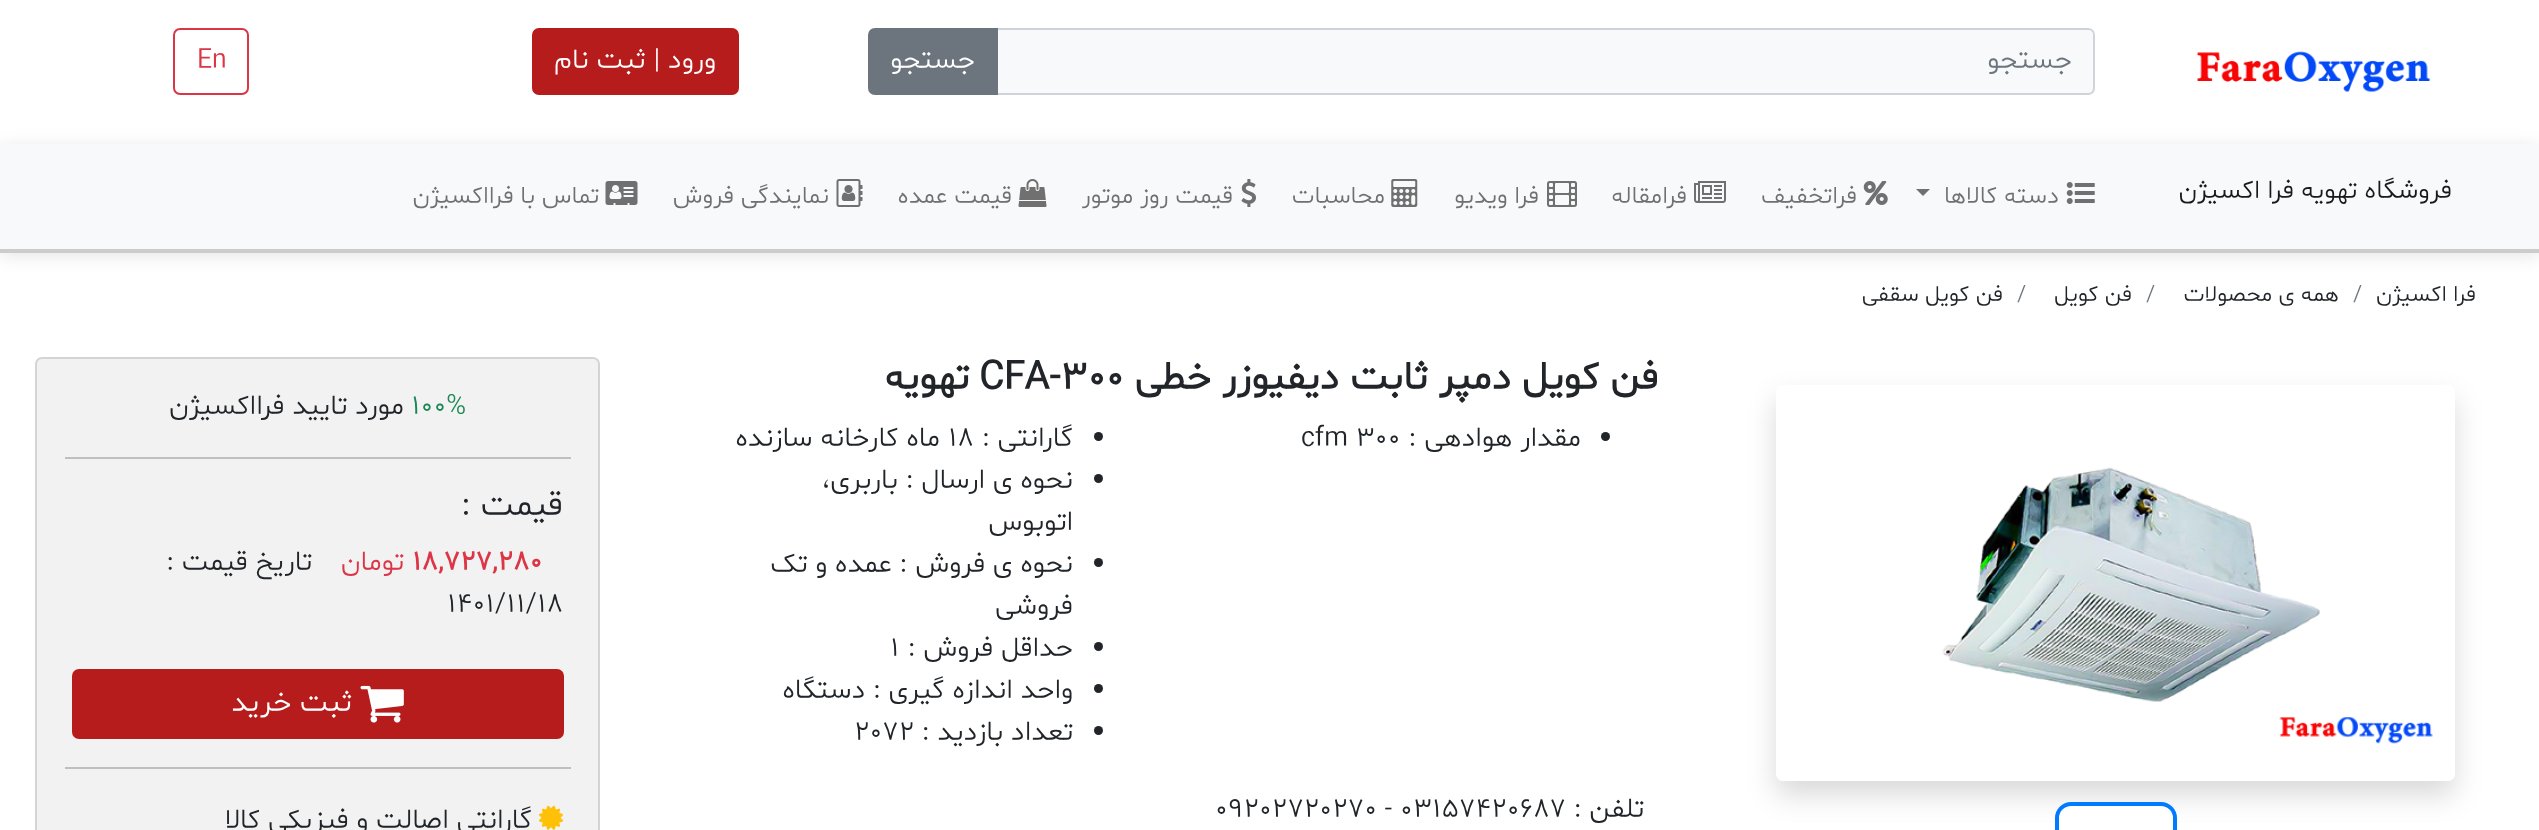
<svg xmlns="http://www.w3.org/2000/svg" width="2539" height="830">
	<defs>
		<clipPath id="clip1"><path d="M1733 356H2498V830H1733ZM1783 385H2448C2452 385 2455 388 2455 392V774C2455 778 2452 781 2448 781H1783C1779 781 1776 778 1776 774V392C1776 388 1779 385 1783 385Z" clip-rule="evenodd" /></clipPath>
	</defs>
	<rect width="100%" height="100%" fill="#FFFFFF" />
	<image x="2196" y="51" width="235" height="41" href="assets/img1.png" />
	<path d="M997 29H2088C2091.5 29 2094 31.5 2094 35V88C2094 91.5 2091.5 94 2088 94H997Z" fill="#F8F9FA" stroke="#CED4DA" stroke-width="2" />
	<text x="2072" y="68" font-family="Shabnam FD" font-size="28" font-weight="300" direction="rtl" fill="#6C757D">جستجو</text>
	<path d="M875 29H997V94H875C871.5 94 869 91.5 869 88V35C869 31.5 871.5 29 875 29Z" fill="#6C757D" stroke="#6C757D" stroke-width="2" />
	<text x="975" y="68" font-family="Shabnam FD" font-size="28" font-weight="300" direction="rtl" fill="#FFFFFF">جستجو</text>
	<rect x="533" y="29" width="205" height="65" rx="6" fill="#B71C1C" stroke="#B71C1C" stroke-width="2" />
	<text x="716" y="68" font-family="Shabnam FD" font-size="28" font-weight="300" direction="rtl" fill="#FFFFFF">ورود | ثبت نام</text>
	<rect x="174" y="29" width="74" height="65" rx="6" fill="none" stroke="#DC3545" stroke-width="2" />
	<text x="197" y="68" font-family="Shabnam FD" font-size="28" font-weight="300" fill="#DC3545">En</text>
	<rect x="0" y="147" width="2539" height="109" fill="#000000" fill-opacity="0.1" filter="blur(9px)" />
	<rect x="0" y="144" width="2539" height="105" fill="#F8F9FA" />
	<rect x="0" y="249" width="2539" height="4" fill="#CCCCCC" />
	<text x="2452" y="198" font-family="Shabnam FD" font-size="26.25" font-weight="300" direction="rtl" fill="#191919">فروشگاه تهویه فرا اکسیژن</text>
	<image x="2066" y="182" width="29" height="22" href="assets/img2.png" />
	<text x="2059" y="203" font-family="Shabnam FD" font-size="24.5" font-weight="300" direction="rtl" fill="#707071">دسته کالاها</text>
	<path d="M1916 189H1930L1923 196Z" fill="#707071" />
	<image x="1863" y="181" width="25" height="24" href="assets/img3.png" />
	<text x="1857" y="203" font-family="Shabnam FD" font-size="24.5" font-weight="300" direction="rtl" fill="#707071">فراتخفیف</text>
	<image x="1694" y="181" width="32" height="22" href="assets/img4.png" />
	<text x="1687" y="203" font-family="Shabnam FD" font-size="24.5" font-weight="300" direction="rtl" fill="#707071">فرامقاله</text>
	<image x="1547" y="181" width="30" height="26" href="assets/img5.png" />
	<text x="1539" y="203" font-family="Shabnam FD" font-size="24.5" font-weight="300" direction="rtl" fill="#707071">فرا ویدیو</text>
	<image x="1391" y="179" width="27" height="28" href="assets/img6.png" />
	<text x="1385" y="203" font-family="Shabnam FD" font-size="24.5" font-weight="300" direction="rtl" fill="#707071">محاسبات</text>
	<image x="1241" y="179" width="15" height="28" href="assets/img7.png" />
	<text x="1233" y="203" font-family="Shabnam FD" font-size="24.5" font-weight="300" direction="rtl" fill="#707071">قیمت روز موتور</text>
	<image x="1018" y="179" width="29" height="28" href="assets/img8.png" />
	<text x="1012" y="203" font-family="Shabnam FD" font-size="24.5" font-weight="300" direction="rtl" fill="#707071">قیمت عمده</text>
	<image x="836" y="179" width="27" height="28" href="assets/img9.png" />
	<text x="829" y="203" font-family="Shabnam FD" font-size="24.5" font-weight="300" direction="rtl" fill="#707071">نمایندگی فروش</text>
	<image x="605" y="181" width="33" height="24" href="assets/img10.png" />
	<text x="599" y="203" font-family="Shabnam FD" font-size="24.5" font-weight="300" direction="rtl" fill="#707071">تماس با فرااکسیژن</text>
	<text x="2476" y="301" font-family="Shabnam FD" font-size="22.75" font-weight="300" direction="rtl" fill="#212529">فرا اکسیژن</text>
	<text x="2353" y="301" font-family="Shabnam FD" font-size="22.75" font-weight="300" fill="#6C757D">/</text>
	<text x="2339" y="301" font-family="Shabnam FD" font-size="22.75" font-weight="300" direction="rtl" fill="#212529">همه ی محصولات</text>
	<text x="2146" y="301" font-family="Shabnam FD" font-size="22.75" font-weight="300" fill="#6C757D">/</text>
	<text x="2132" y="301" font-family="Shabnam FD" font-size="22.75" font-weight="300" direction="rtl" fill="#212529">فن کویل</text>
	<text x="2017" y="301" font-family="Shabnam FD" font-size="22.75" font-weight="300" fill="#6C757D">/</text>
	<text x="2003" y="301" font-family="Shabnam FD" font-size="22.75" font-weight="300" direction="rtl" fill="#212529">فن کویل سقفی</text>
	<g clip-path="url(#clip1)">
		<rect x="1776" y="399" width="679" height="396" rx="7" fill="#000000" fill-opacity="0.15" filter="blur(14px)" />
	</g>
	<image x="1778" y="467" width="674" height="313" href="assets/img11.png" />
	<rect x="2057" y="804" width="118" height="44" rx="14" fill="#FFFFFF" stroke="#007BFF" stroke-width="4" />
	<text x="1658" y="389" font-family="Shabnam FD" font-size="39.7" font-weight="700" direction="rtl" fill="#212529">فن کویل دمپر ثابت دیفیوزر خطی</text>
	<text x="979" y="389" font-family="Shabnam FD" font-size="39.7" font-weight="700" fill="#212529">CFA-300</text>
	<text x="969" y="389" font-family="Shabnam FD" font-size="39.7" font-weight="700" direction="rtl" fill="#212529">تهویه</text>
	<circle cx="1605.5" cy="436.5" r="4.5" fill="#212529" />
	<text x="1581" y="446" font-family="Shabnam FD" font-size="28" font-weight="300" direction="rtl" fill="#212529">مقدار هوادهی :</text>
	<text x="1301" y="446" font-family="Shabnam FD" font-size="28" font-weight="300" fill="#212529">cfm 300</text>
	<circle cx="1098.5" cy="436.5" r="4.5" fill="#212529" />
	<text x="1073" y="446" font-family="Shabnam FD" font-size="28" font-weight="300" direction="rtl" fill="#212529">گارانتی :</text>
	<text x="948" y="446" font-family="Shabnam FD" font-size="28" font-weight="300" fill="#212529">18</text>
	<text x="940" y="446" font-family="Shabnam FD" font-size="28" font-weight="300" direction="rtl" fill="#212529">ماه کارخانه سازنده</text>
	<circle cx="1098.5" cy="478.5" r="4.5" fill="#212529" />
	<g font-family="Shabnam FD" font-size="28" font-weight="300" direction="rtl" fill="#212529">
		<text x="1073" y="488">نحوه ی ارسال : باربری،</text>
		<text x="1073" y="530">اتوبوس</text>
	</g>
	<circle cx="1098.5" cy="562.5" r="4.5" fill="#212529" />
	<g font-family="Shabnam FD" font-size="28" font-weight="300" direction="rtl" fill="#212529">
		<text x="1073" y="572">نحوه ی فروش : عمده و تک</text>
		<text x="1073" y="614">فروشی</text>
	</g>
	<circle cx="1098.5" cy="646.5" r="4.5" fill="#212529" />
	<text x="1073" y="656" font-family="Shabnam FD" font-size="28" font-weight="300" direction="rtl" fill="#212529">حداقل فروش :</text>
	<text x="890" y="656" font-family="Shabnam FD" font-size="28" font-weight="300" fill="#212529">1</text>
	<circle cx="1098.5" cy="688.5" r="4.5" fill="#212529" />
	<text x="1073" y="698" font-family="Shabnam FD" font-size="28" font-weight="300" direction="rtl" fill="#212529">واحد اندازه گیری : دستگاه</text>
	<circle cx="1098.5" cy="730.5" r="4.5" fill="#212529" />
	<text x="1073" y="740" font-family="Shabnam FD" font-size="28" font-weight="300" direction="rtl" fill="#212529">تعداد بازدید :</text>
	<text x="854" y="740" font-family="Shabnam FD" font-size="28" font-weight="300" fill="#212529">2072</text>
	<text x="1644" y="817" font-family="Shabnam FD" font-size="28" font-weight="300" direction="rtl" fill="#212529">تلفن :</text>
	<text x="1215" y="817" font-family="Shabnam FD" font-size="28" font-weight="300" fill="#212529">09202720270 - 03157420687</text>
	<rect x="35" y="357" width="565" height="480" rx="7" fill="#F2F2F2" />
	<rect x="36" y="358" width="563" height="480" rx="6" fill="none" stroke="#000000" stroke-opacity="0.12" stroke-width="2" />
	<text x="411" y="414" font-family="Shabnam FD" font-size="28" font-weight="300" fill="#198754">100%</text>
	<text x="404" y="414" font-family="Shabnam FD" font-size="28" font-weight="300" direction="rtl" fill="#212529">مورد تایید فرااکسیژن</text>
	<rect x="65" y="457" width="506" height="2" fill="#BEBFC0" />
	<text x="563" y="515" font-family="Shabnam FD" font-size="35" font-weight="300" direction="rtl" fill="#212529">قیمت :</text>
	<text x="412" y="570" font-family="Shabnam FD" font-size="28" font-weight="700" fill="#DC3545">18,727,280</text>
	<text x="404" y="570" font-family="Shabnam FD" font-size="28" font-weight="300" direction="rtl" fill="#DC3545">تومان</text>
	<text x="312" y="570" font-family="Shabnam FD" font-size="28" font-weight="300" direction="rtl" fill="#212529">تاریخ قیمت :</text>
	<text x="447" y="612" font-family="Shabnam FD" font-size="28" font-weight="300" fill="#212529">1401/11/18</text>
	<rect x="73" y="670" width="490" height="68" rx="6" fill="#B71C1C" stroke="#B71C1C" stroke-width="2" />
	<image x="360" y="685" width="44" height="38" href="assets/img12.png" />
	<text x="352" y="711" font-family="Shabnam FD" font-size="29.75" font-weight="300" direction="rtl" fill="#FFFFFF">ثبت خرید</text>
	<rect x="65" y="767" width="506" height="2" fill="#BEBFC0" />
	<image x="539" y="805" width="24" height="25" href="assets/img13.png" />
	<text x="532" y="828" font-family="Shabnam FD" font-size="28" font-weight="300" direction="rtl" fill="#212529">گارانتی اصالت و فیزیکی کالا</text>
</svg>
